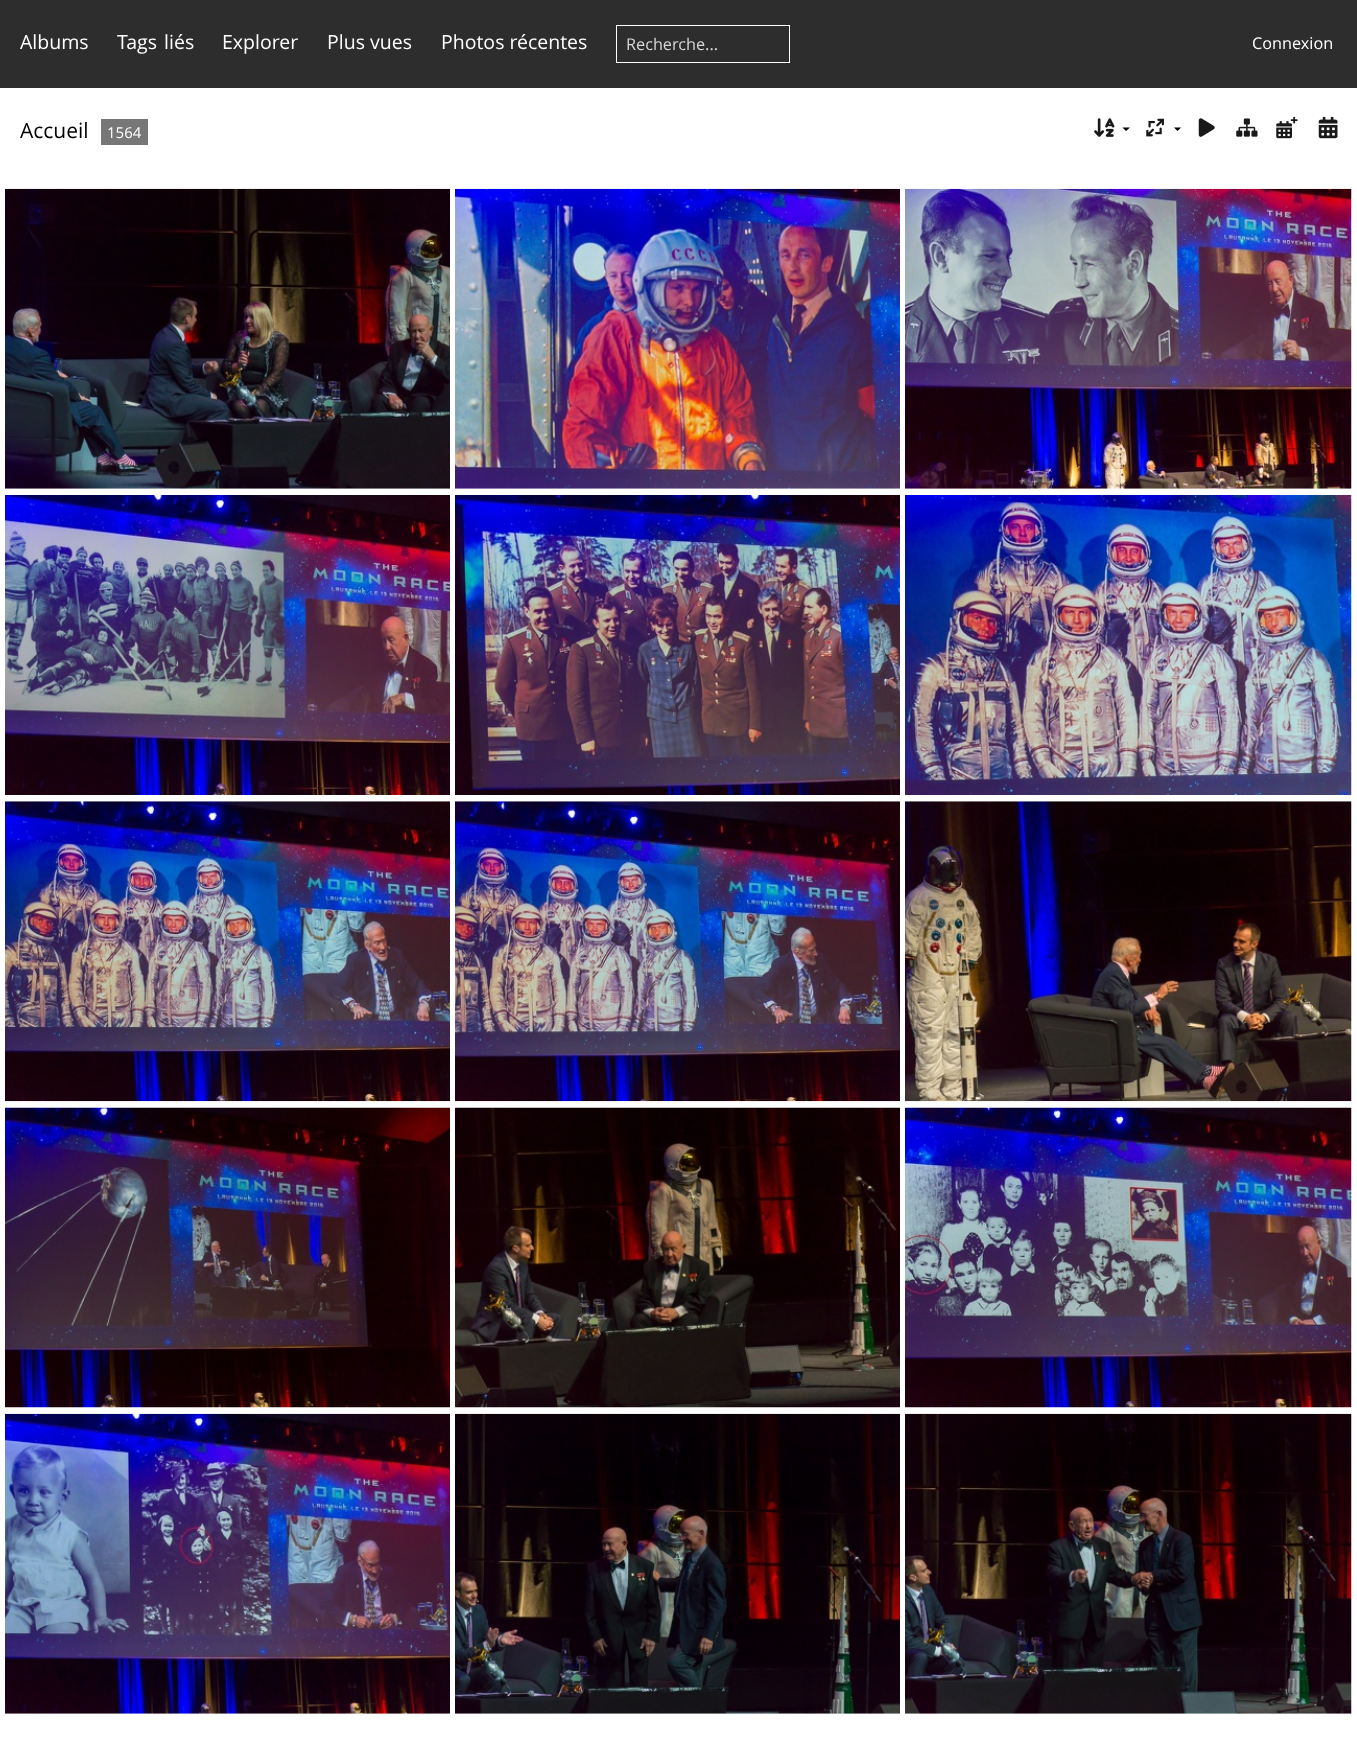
<svg xmlns="http://www.w3.org/2000/svg" width="1357" height="1742">
	<rect width="100%" height="100%" fill="#FFFFFF" />
	<rect x="0" y="0" width="1357" height="88" fill="#2D2D2D" />
	<g font-family="Open Sans" font-size="19.5" fill="#FFFFFF">
		<text x="20" y="49">Albums</text>
		<text x="117" y="49" word-spacing="2">Tags liés</text>
		<text x="222" y="49">Explorer</text>
		<text x="327" y="49">Plus vues</text>
		<text x="441" y="49">Photos récentes</text>
	</g>
	<rect x="616.5" y="25.5" width="173" height="37" fill="none" stroke="#FFFFFF" />
	<text x="626" y="50" font-family="Open Sans" font-size="16.25" fill="#D6D6D6">Recherche...</text>
	<text x="1252" y="49" font-family="Open Sans" font-size="16.25" fill="#FFFFFF">Connexion</text>
	<text x="20" y="138" font-family="Open Sans" font-size="21" fill="#000000">Accueil</text>
	<rect x="101" y="119" width="47" height="26" fill="#777777" />
	<text x="107" y="138" font-family="Open Sans" font-size="15" fill="#FFFFFF">1564</text>
	<image x="1094" y="118" width="21" height="19" href="assets/img1.png" />
	<path d="M1122.5 127.5H1130L1126 131ZM1174 127.5H1181L1177.5 131Z" fill="#000000" />
	<image x="1276" y="116" width="22" height="23" href="assets/img2.png" />
	<image x="1318" y="116" width="20" height="23" href="assets/img3.png" />
	<image x="1146" y="118" width="18" height="19" href="assets/img4.png" />
	<image x="1198" y="118" width="17" height="19" href="assets/img5.png" />
	<image x="1236" y="118" width="22" height="19" href="assets/img6.png" />
	<image x="5" y="188" width="445" height="301" href="assets/img7.png" />
	<image x="455" y="188" width="445" height="301" href="assets/img8.png" />
	<image x="905" y="188" width="447" height="301" href="assets/img9.png" />
	<image x="5" y="495" width="445" height="300" href="assets/img10.png" />
	<image x="455" y="495" width="445" height="300" href="assets/img11.png" />
	<image x="905" y="495" width="447" height="300" href="assets/img12.png" />
	<image x="5" y="801" width="445" height="301" href="assets/img13.png" />
	<image x="455" y="801" width="445" height="301" href="assets/img14.png" />
	<image x="905" y="801" width="447" height="301" href="assets/img15.png" />
	<image x="5" y="1107" width="445" height="301" href="assets/img16.png" />
	<image x="455" y="1107" width="445" height="301" href="assets/img17.png" />
	<image x="905" y="1107" width="447" height="301" href="assets/img18.png" />
	<image x="5" y="1413" width="445" height="301" href="assets/img19.png" />
	<image x="455" y="1413" width="445" height="301" href="assets/img20.png" />
	<image x="905" y="1413" width="447" height="301" href="assets/img21.png" />
</svg>
